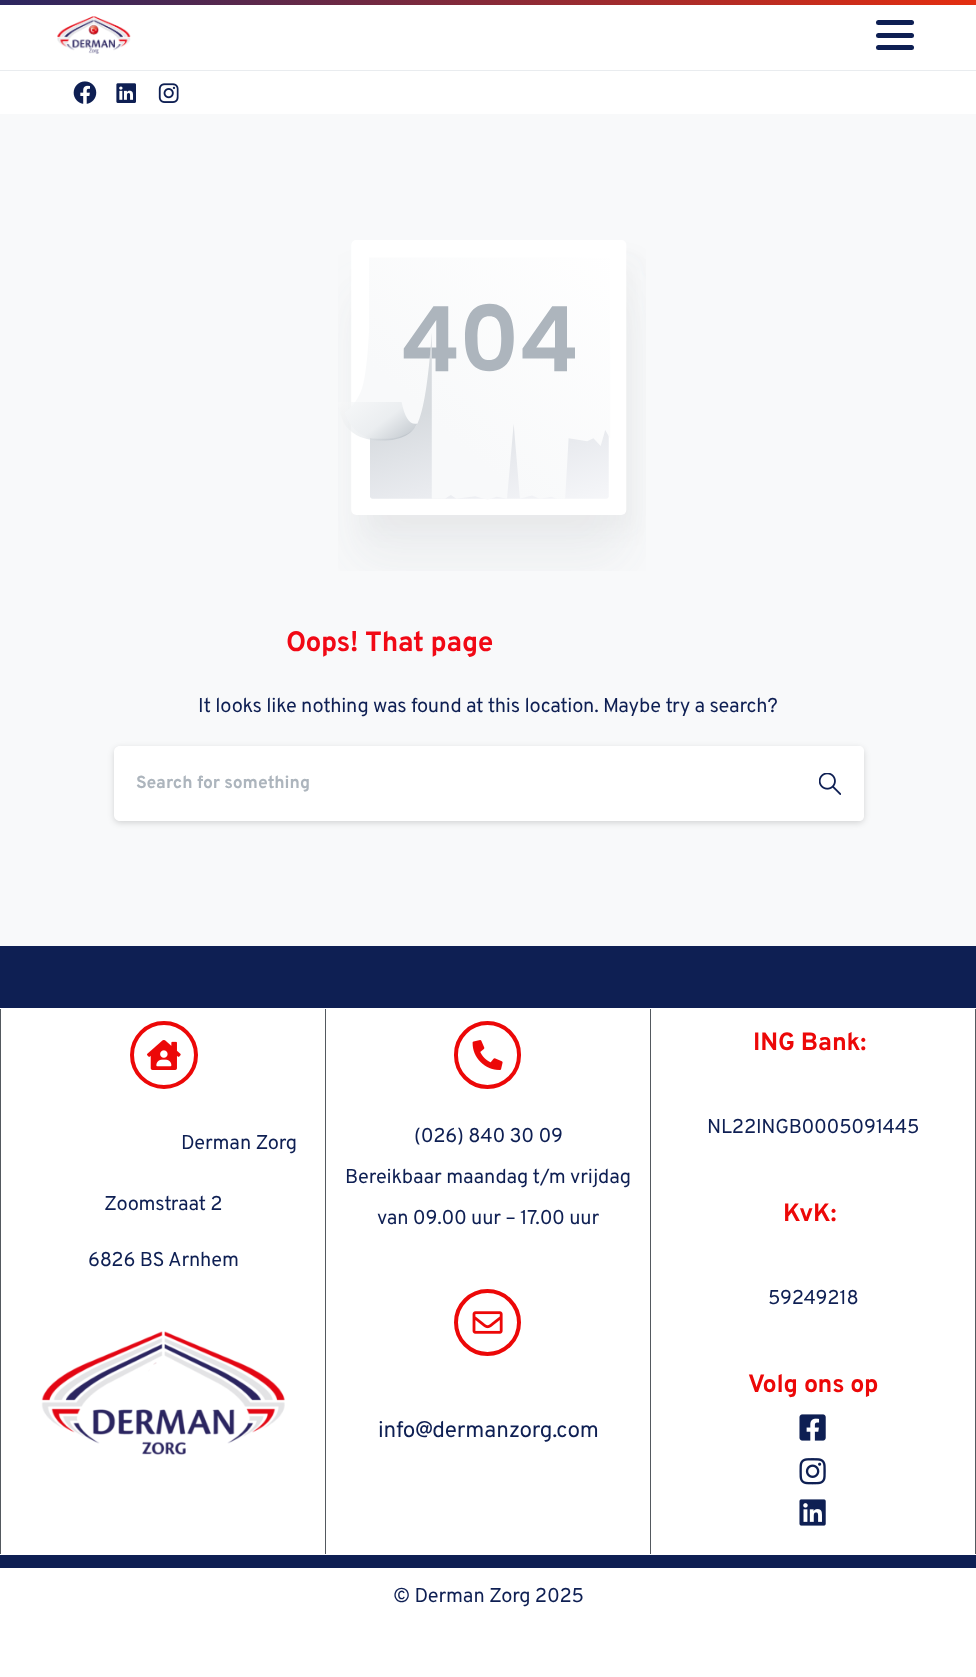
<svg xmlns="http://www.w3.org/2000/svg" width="976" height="1677">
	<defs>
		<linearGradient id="g1" gradientUnits="userSpaceOnUse" x1="0" y1="2.5" x2="976" y2="2.5"><stop offset="0" stop-color="#2B2660" /><stop offset="1" stop-color="#E42E10" /></linearGradient>
	</defs>
	<rect width="100%" height="100%" fill="#FFFFFF" />
	<rect x="0" y="0" width="976" height="5" fill="url(#g1)" />
	<image x="57" y="16" width="74" height="38" href="assets/img1.png" />
	<rect x="876" y="33" width="38" height="5" rx="2.5" fill="#0E1F53" />
	<rect x="876" y="20" width="38" height="5" rx="2.5" fill="#0E1F53" />
	<rect x="876" y="45" width="38" height="5" rx="2.5" fill="#0E1F53" />
	<rect x="0" y="70" width="976" height="1" fill="#E9ECEF" />
	<image x="73" y="81" width="24" height="23" href="assets/img2.png" />
	<image x="116" y="83" width="20" height="20" href="assets/img3.png" />
	<image x="158" y="83" width="21" height="20" href="assets/img4.png" />
	<rect x="0" y="114" width="976" height="832" fill="#F8F9FA" />
	<image x="338" y="240" width="308" height="331" href="assets/img5.png" />
	<text x="286" y="651" font-family="Overpass" font-size="28" font-weight="700" letter-spacing="-0.25" fill="#F10915">Oops! That page</text>
	<text x="198" y="712" font-family="Overpass" font-size="20" letter-spacing="-0.2" fill="#0E1F53">It looks like nothing was found at this location. Maybe try a search?</text>
	<rect x="114" y="748" width="750" height="75" rx="6" fill="#000000" fill-opacity="0.15" filter="blur(3px)" />
	<path d="M120 746H796V821H120C116.5 821 114 818.5 114 815V752C114 748.5 116.5 746 120 746Z" fill="#FFFFFF" />
	<text x="136" y="788" font-family="Overpass" font-size="17.5" font-weight="700" fill="#ADB5BD">Search for something</text>
	<path d="M796 746H859C862 746 864 748 864 751V816C864 819 862 821 859 821H796Z" fill="#FFFFFF" />
	<image x="819" y="773" width="22" height="22" href="assets/img6.png" />
	<rect x="0" y="946" width="976" height="62" fill="#0E1F53" />
	<rect x="0" y="1009" width="1" height="545" fill="#54595F" />
	<circle cx="164" cy="1055" r="32" fill="none" stroke="#EC0808" stroke-width="4" />
	<image x="147" y="1040" width="34" height="30" href="assets/img7.png" />
	<g font-family="Overpass" font-size="20" letter-spacing="-0.2" fill="#0E1F53">
		<text x="181" y="1149">Derman Zorg</text>
		<text x="104" y="1210">Zoomstraat 2</text>
		<text x="88" y="1266">6826 BS Arnhem</text>
	</g>
	<image x="41" y="1331" width="244" height="124" href="assets/img8.png" />
	<rect x="650" y="1009" width="1" height="545" fill="#54595F" />
	<rect x="325" y="1009" width="1" height="545" fill="#54595F" />
	<rect x="456" y="1023" width="63" height="64" rx="31.5" fill="none" stroke="#EC0808" stroke-width="4" />
	<image x="472" y="1040" width="31" height="30" href="assets/img9.png" />
	<g font-family="Overpass" font-size="20" letter-spacing="-0.2" fill="#0E1F53">
		<text x="414" y="1142">(026) 840 30 09</text>
		<text x="345" y="1183">Bereikbaar maandag t/m vrijdag</text>
		<text x="377" y="1224">van 09.00 uur – 17.00 uur</text>
	</g>
	<circle cx="487.5" cy="1322.5" r="31.5" fill="none" stroke="#EC0808" stroke-width="4" />
	<image x="472" y="1311" width="31" height="23" href="assets/img10.png" />
	<text x="378" y="1437" font-family="Overpass" font-size="22.5" letter-spacing="-0.2" fill="#0E1F53">info@dermanzorg.com</text>
	<rect x="975" y="1009" width="1" height="545" fill="#54595F" />
	<text x="753" y="1050" font-family="Overpass" font-size="25" font-weight="700" letter-spacing="-0.2" fill="#EC0808">ING Bank:</text>
	<text x="707" y="1133" font-family="Overpass" font-size="20" letter-spacing="-0.2" fill="#0E1F53">NL22INGB0005091445</text>
	<text x="783" y="1221" font-family="Overpass" font-size="25" font-weight="700" letter-spacing="-0.2" fill="#EC0808">KvK:</text>
	<text x="768" y="1304" font-family="Overpass" font-size="20" letter-spacing="-0.2" fill="#0E1F53">59249218</text>
	<text x="748" y="1392" font-family="Overpass" font-size="25" font-weight="700" letter-spacing="-0.2" fill="#EC0808">Volg ons op</text>
	<image x="799" y="1414" width="27" height="27" href="assets/img11.png" />
	<image x="799" y="1458" width="27" height="27" href="assets/img12.png" />
	<image x="799" y="1499" width="27" height="27" href="assets/img13.png" />
	<rect x="0" y="1555" width="976" height="13" fill="#0E1F53" />
	<text x="393" y="1602" font-family="Overpass" font-size="20" letter-spacing="-0.2" fill="#0E1F53">© Derman Zorg 2025</text>
</svg>
